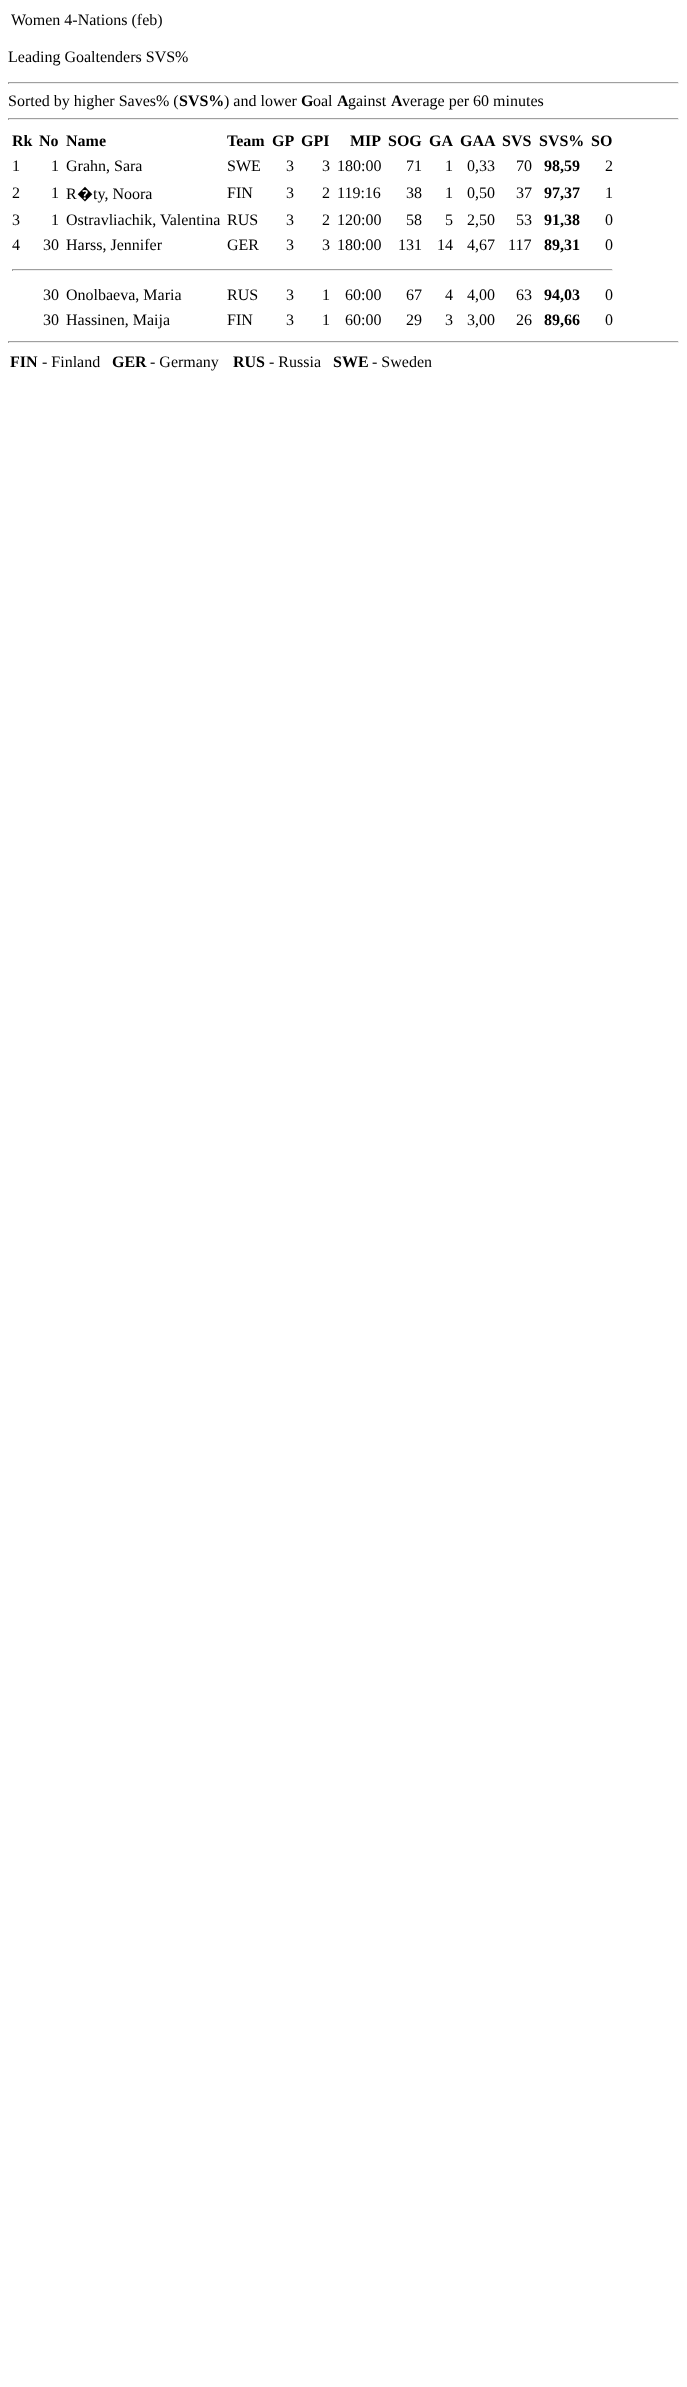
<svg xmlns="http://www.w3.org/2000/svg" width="687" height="2387">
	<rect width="100%" height="100%" fill="#FFFFFF" />
	<g font-family="Liberation Serif" font-size="16" fill="#000000">
		<text x="11" y="25">Women 4-Nations (feb)</text>
		<text x="8" y="62">Leading Goaltenders SVS%</text>
	</g>
	<rect x="8" y="82" width="671" height="1" fill="#9F9F9F" />
	<rect x="678" y="82" width="1" height="2" fill="#EEEEEE" />
	<rect x="8" y="83" width="671" height="1" fill="#EEEEEE" />
	<rect x="8" y="82" width="1" height="2" fill="#9F9F9F" />
	<text x="8" y="106" font-family="Liberation Serif" font-size="16" fill="#000000">Sorted by higher Saves% (</text>
	<text x="179" y="106" font-family="Liberation Serif" font-size="16" font-weight="700" fill="#000000">SVS%</text>
	<text x="224" y="106" font-family="Liberation Serif" font-size="16" fill="#000000">) and lower</text>
	<text x="301" y="106" font-family="Liberation Serif" font-size="16" font-weight="700" fill="#000000">G</text>
	<text x="313" y="106" font-family="Liberation Serif" font-size="16" fill="#000000">oal</text>
	<text x="337" y="106" font-family="Liberation Serif" font-size="16" font-weight="700" fill="#000000">A</text>
	<text x="348" y="106" font-family="Liberation Serif" font-size="16" fill="#000000">gainst</text>
	<text x="391" y="106" font-family="Liberation Serif" font-size="16" font-weight="700" fill="#000000">A</text>
	<text x="402" y="106" font-family="Liberation Serif" font-size="16" fill="#000000">verage per 60 minutes</text>
	<rect x="8" y="118" width="671" height="1" fill="#9F9F9F" />
	<rect x="678" y="118" width="1" height="2" fill="#EEEEEE" />
	<rect x="8" y="119" width="671" height="1" fill="#EEEEEE" />
	<rect x="8" y="118" width="1" height="2" fill="#9F9F9F" />
	<g font-family="Liberation Serif" font-size="16" font-weight="700" fill="#000000">
		<text x="12" y="146">Rk</text>
		<text x="39" y="146">No</text>
		<text x="66" y="146">Name</text>
		<text x="227" y="146">Team</text>
		<text x="272" y="146">GP</text>
		<text x="301" y="146">GPI</text>
		<text x="350" y="146">MIP</text>
		<text x="388" y="146">SOG</text>
		<text x="429" y="146">GA</text>
		<text x="460" y="146">GAA</text>
		<text x="502" y="146">SVS</text>
		<text x="539" y="146">SVS%</text>
		<text x="591" y="146">SO</text>
	</g>
	<g font-family="Liberation Serif" font-size="16" fill="#000000">
		<text x="12" y="171">1</text>
		<text x="51" y="171">1</text>
		<text x="66" y="171">Grahn, Sara</text>
		<text x="227" y="171">SWE</text>
		<text x="286" y="171">3</text>
		<text x="322" y="171">3</text>
		<text x="337" y="171">180:00</text>
		<text x="406" y="171">71</text>
		<text x="445" y="171">1</text>
		<text x="467" y="171">0,33</text>
		<text x="516" y="171">70</text>
	</g>
	<text x="544" y="171" font-family="Liberation Serif" font-size="16" font-weight="700" fill="#000000">98,59</text>
	<g font-family="Liberation Serif" font-size="16" fill="#000000">
		<text x="605" y="171">2</text>
		<text x="12" y="198">2</text>
		<text x="51" y="198">1</text>
		<text x="66" y="199">R</text>
	</g>
	<text x="77" y="199" font-family="Noto Sans" font-size="16" fill="#000000">�</text>
	<g font-family="Liberation Serif" font-size="16" fill="#000000">
		<text x="93" y="199">ty, Noora</text>
		<text x="227" y="198">FIN</text>
		<text x="286" y="198">3</text>
		<text x="322" y="198">2</text>
		<text x="337" y="198">119:16</text>
		<text x="406" y="198">38</text>
		<text x="445" y="198">1</text>
		<text x="467" y="198">0,50</text>
		<text x="516" y="198">37</text>
	</g>
	<text x="544" y="198" font-family="Liberation Serif" font-size="16" font-weight="700" fill="#000000">97,37</text>
	<g font-family="Liberation Serif" font-size="16" fill="#000000">
		<text x="605" y="198">1</text>
		<text x="12" y="225">3</text>
		<text x="51" y="225">1</text>
		<text x="66" y="225">Ostravliachik, Valentina</text>
		<text x="227" y="225">RUS</text>
		<text x="286" y="225">3</text>
		<text x="322" y="225">2</text>
		<text x="337" y="225">120:00</text>
		<text x="406" y="225">58</text>
		<text x="445" y="225">5</text>
		<text x="467" y="225">2,50</text>
		<text x="516" y="225">53</text>
	</g>
	<text x="544" y="225" font-family="Liberation Serif" font-size="16" font-weight="700" fill="#000000">91,38</text>
	<g font-family="Liberation Serif" font-size="16" fill="#000000">
		<text x="605" y="225">0</text>
		<text x="12" y="250">4</text>
		<text x="43" y="250">30</text>
		<text x="66" y="250">Harss, Jennifer</text>
		<text x="227" y="250">GER</text>
		<text x="286" y="250">3</text>
		<text x="322" y="250">3</text>
		<text x="337" y="250">180:00</text>
		<text x="398" y="250">131</text>
		<text x="437" y="250">14</text>
		<text x="467" y="250">4,67</text>
		<text x="508" y="250">117</text>
	</g>
	<text x="544" y="250" font-family="Liberation Serif" font-size="16" font-weight="700" fill="#000000">89,31</text>
	<text x="605" y="250" font-family="Liberation Serif" font-size="16" fill="#000000">0</text>
	<rect x="12" y="269" width="601" height="1" fill="#9F9F9F" />
	<rect x="612" y="269" width="1" height="2" fill="#EEEEEE" />
	<rect x="12" y="270" width="601" height="1" fill="#EEEEEE" />
	<rect x="12" y="269" width="1" height="2" fill="#9F9F9F" />
	<g font-family="Liberation Serif" font-size="16" fill="#000000">
		<text x="43" y="300">30</text>
		<text x="66" y="300">Onolbaeva, Maria</text>
		<text x="227" y="300">RUS</text>
		<text x="286" y="300">3</text>
		<text x="322" y="300">1</text>
		<text x="345" y="300">60:00</text>
		<text x="406" y="300">67</text>
		<text x="445" y="300">4</text>
		<text x="467" y="300">4,00</text>
		<text x="516" y="300">63</text>
	</g>
	<text x="544" y="300" font-family="Liberation Serif" font-size="16" font-weight="700" fill="#000000">94,03</text>
	<g font-family="Liberation Serif" font-size="16" fill="#000000">
		<text x="605" y="300">0</text>
		<text x="43" y="325">30</text>
		<text x="66" y="325">Hassinen, Maija</text>
		<text x="227" y="325">FIN</text>
		<text x="286" y="325">3</text>
		<text x="322" y="325">1</text>
		<text x="345" y="325">60:00</text>
		<text x="406" y="325">29</text>
		<text x="445" y="325">3</text>
		<text x="467" y="325">3,00</text>
		<text x="516" y="325">26</text>
	</g>
	<text x="544" y="325" font-family="Liberation Serif" font-size="16" font-weight="700" fill="#000000">89,66</text>
	<text x="605" y="325" font-family="Liberation Serif" font-size="16" fill="#000000">0</text>
	<rect x="8" y="341" width="671" height="1" fill="#9F9F9F" />
	<rect x="678" y="341" width="1" height="2" fill="#EEEEEE" />
	<rect x="8" y="342" width="671" height="1" fill="#EEEEEE" />
	<rect x="8" y="341" width="1" height="2" fill="#9F9F9F" />
	<text x="10" y="367" font-family="Liberation Serif" font-size="16" font-weight="700" fill="#000000">FIN</text>
	<text x="42" y="367" font-family="Liberation Serif" font-size="16" fill="#000000">- Finland</text>
	<text x="112" y="367" font-family="Liberation Serif" font-size="16" font-weight="700" fill="#000000">GER</text>
	<text x="150" y="367" font-family="Liberation Serif" font-size="16" fill="#000000">- Germany</text>
	<text x="233" y="367" font-family="Liberation Serif" font-size="16" font-weight="700" fill="#000000">RUS</text>
	<text x="269" y="367" font-family="Liberation Serif" font-size="16" fill="#000000">- Russia</text>
	<text x="333" y="367" font-family="Liberation Serif" font-size="16" font-weight="700" fill="#000000">SWE</text>
	<text x="372" y="367" font-family="Liberation Serif" font-size="16" fill="#000000">- Sweden</text>
</svg>
